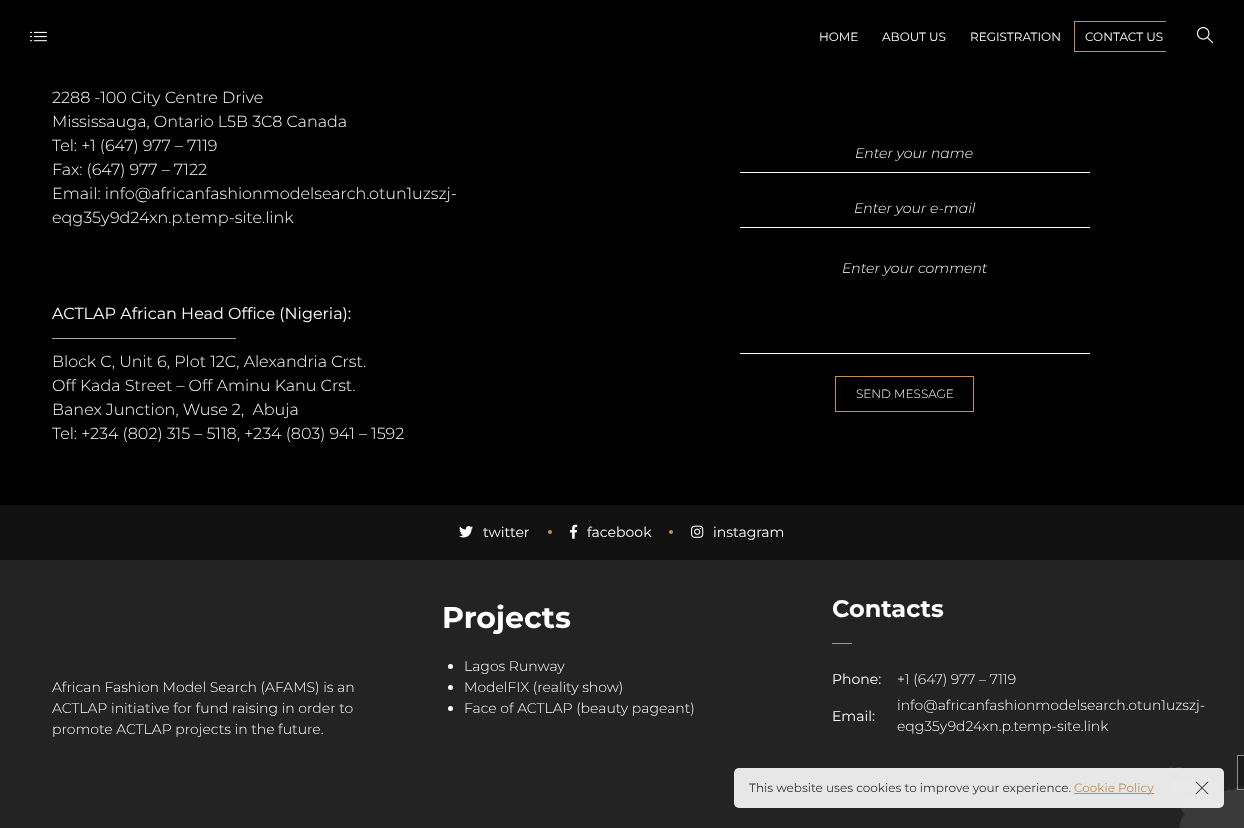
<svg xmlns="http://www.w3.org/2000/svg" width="1244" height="828">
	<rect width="100%" height="100%" fill="#000000" />
	<image x="30" y="31" width="17" height="11" href="assets/img1.png" />
	<g font-family="Montserrat" font-size="12" fill="#FFFFFF">
		<text x="819" y="41">HOME</text>
		<text x="882" y="41">ABOUT US</text>
		<text x="970" y="41">REGISTRATION</text>
		<text x="1085" y="41">CONTACT US</text>
	</g>
	<rect x="1074" y="21" width="92" height="1" fill="#C48F56" />
	<rect x="1074" y="51" width="92" height="1" fill="#C48F56" />
	<rect x="1074" y="21" width="1" height="31" fill="#C48F56" />
	<image x="1196" y="27" width="17" height="17" href="assets/img2.png" />
	<g font-family="Montserrat" font-size="16" font-weight="300" fill="#FFFFFF">
		<text x="52" y="103">2288 -100 City Centre Drive</text>
		<text x="52" y="127">Mississauga, Ontario L5B 3C8 Canada</text>
		<text x="52" y="151">Tel: +1 (647) 977 – 7119</text>
		<text x="52" y="175">Fax: (647) 977 – 7122</text>
		<text x="52" y="199">Email: info@africanfashionmodelsearch.otun1uzszj-</text>
		<text x="52" y="223">eqg35y9d24xn.p.temp-site.link</text>
	</g>
	<text x="52" y="319" font-family="Montserrat" font-size="16" fill="#FFFFFF">ACTLAP African Head Office (Nigeria):</text>
	<g font-family="Montserrat" font-size="16" font-weight="300" fill="#FFFFFF">
		<text x="52" y="343">———————————–</text>
		<text x="52" y="367">Block C, Unit 6, Plot 12C, Alexandria Crst.</text>
		<text x="52" y="391">Off Kada Street – Off Aminu Kanu Crst.</text>
		<text x="52" y="415" xml:space="preserve">Banex Junction, Wuse 2,  Abuja</text>
		<text x="52" y="439">Tel: +234 (802) 315 – 5118, +234 (803) 941 – 1592</text>
	</g>
	<rect x="740" y="172" width="350" height="1" fill="#FFFFFF" />
	<text x="855" y="158" font-family="Montserrat" font-size="14" font-weight="300" font-style="italic" fill="#FFFFFF">Enter your name</text>
	<rect x="740" y="227" width="350" height="1" fill="#FFFFFF" />
	<text x="854" y="213" font-family="Montserrat" font-size="14" font-weight="300" font-style="italic" fill="#FFFFFF">Enter your e-mail</text>
	<rect x="740" y="353" width="350" height="1" fill="#FFFFFF" />
	<text x="842" y="273" font-family="Montserrat" font-size="14" font-weight="300" font-style="italic" fill="#FFFFFF">Enter your comment</text>
	<rect x="835.5" y="376.5" width="138" height="35" fill="none" stroke="#C48F56" />
	<text x="856" y="398" font-family="Montserrat" font-size="12" font-weight="300" fill="#FFFFFF">SEND MESSAGE</text>
	<rect x="0" y="505" width="1244" height="55" fill="#111111" />
	<image x="459" y="526" width="14" height="12" href="assets/img3.png" />
	<text x="483" y="537" font-family="Montserrat" font-size="14" fill="#FFFFFF">twitter</text>
	<circle cx="550" cy="532" r="2" fill="#C48F56" />
	<image x="570" y="524" width="8" height="15" href="assets/img4.png" />
	<text x="587" y="537" font-family="Montserrat" font-size="14" fill="#FFFFFF">facebook</text>
	<circle cx="671" cy="532" r="2" fill="#C48F56" />
	<image x="691" y="525" width="13" height="13" href="assets/img5.png" />
	<text x="713" y="537" font-family="Montserrat" font-size="14" fill="#FFFFFF">instagram</text>
	<rect x="0" y="560" width="1244" height="268" fill="#232323" />
	<image x="1162" y="766" width="82" height="62" href="assets/img6.png" />
	<g font-family="Montserrat" font-size="14" font-weight="300" fill="#FFFFFF">
		<text x="52" y="692">African Fashion Model Search (AFAMS) is an</text>
		<text x="52" y="713">ACTLAP initiative for fund raising in order to</text>
		<text x="52" y="734">promote ACTLAP projects in the future.</text>
	</g>
	<text x="442" y="628" font-family="Montserrat" font-size="30" font-weight="700" fill="#FFFFFF">Projects</text>
	<circle cx="450.5" cy="666.5" r="2.5" fill="#FFFFFF" />
	<text x="464" y="671" font-family="Montserrat" font-size="14" font-weight="300" fill="#FFFFFF">Lagos Runway</text>
	<circle cx="450.5" cy="687.5" r="2.5" fill="#FFFFFF" />
	<text x="464" y="692" font-family="Montserrat" font-size="14" font-weight="300" fill="#FFFFFF">ModelFIX (reality show)</text>
	<circle cx="450.5" cy="708.5" r="2.5" fill="#FFFFFF" />
	<text x="464" y="713" font-family="Montserrat" font-size="14" font-weight="300" fill="#FFFFFF">Face of ACTLAP (beauty pageant)</text>
	<text x="832" y="617" font-family="Montserrat" font-size="24" font-weight="700" fill="#FFFFFF">Contacts</text>
	<rect x="832" y="643" width="20" height="1" fill="#C48F56" />
	<text x="832" y="684" font-family="Montserrat" font-size="14" fill="#FFFFFF">Phone:</text>
	<g font-family="Montserrat" font-size="14" font-weight="300" fill="#FFFFFF">
		<text x="897" y="684">+1 (647) 977 – 7119</text>
		<text x="897" y="710">info@africanfashionmodelsearch.otun1uzszj-</text>
	</g>
	<text x="832" y="721" font-family="Montserrat" font-size="14" fill="#FFFFFF">Email:</text>
	<text x="897" y="731" font-family="Montserrat" font-size="14" font-weight="300" fill="#FFFFFF">eqg35y9d24xn.p.temp-site.link</text>
	<rect x="1237" y="755" width="7" height="35" fill="#111111" fill-opacity="0.5" />
	<rect x="1237.5" y="755.5" width="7" height="34" fill="none" stroke="#FFFFFF" stroke-opacity="0.5" />
	<rect x="734" y="768" width="490" height="40" rx="5" fill="#FDFDFD" fill-opacity="0.9" />
	<text x="749" y="792" font-family="Montserrat" font-size="12" fill="#3C3531">This website uses cookies to improve your experience.</text>
	<rect x="1074" y="793" width="80" height="1" fill="#C48F56" />
	<text x="1074" y="792" font-family="Montserrat" font-size="12" fill="#C48F56">Cookie Policy</text>
	<image x="1195" y="781" width="14" height="14" href="assets/img7.png" />
</svg>
